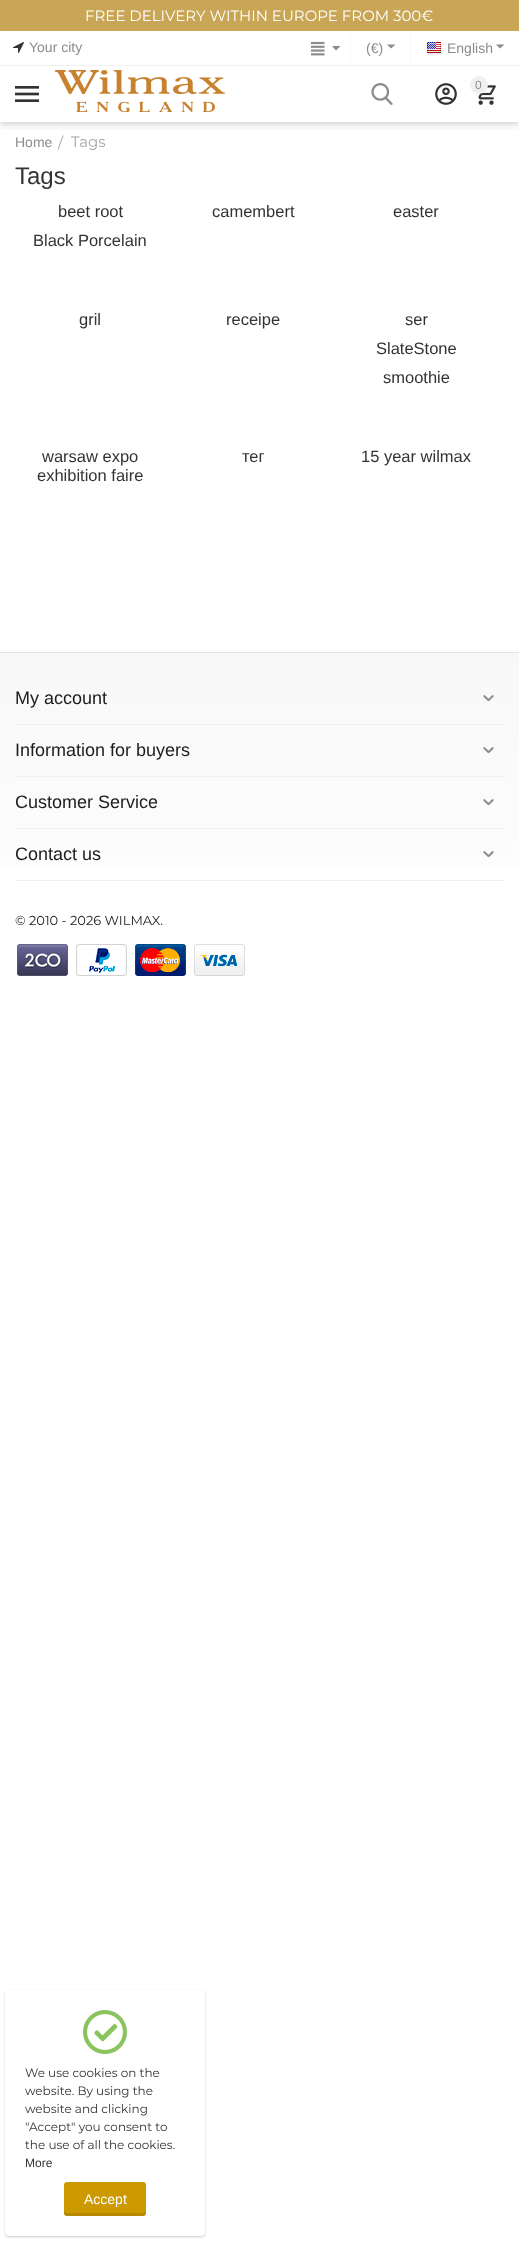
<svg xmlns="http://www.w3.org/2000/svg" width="519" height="2241">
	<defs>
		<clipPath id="clip1"><rect x="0" y="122" width="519" height="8" /></clipPath>
		<clipPath id="clip2"><rect x="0" y="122" width="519" height="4" /></clipPath>
		<linearGradient id="g1" gradientUnits="userSpaceOnUse" x1="260" y1="652" x2="260" y2="986"><stop offset="0" stop-color="#F8F8F8" /><stop offset="1" stop-color="#FFFFFF" /></linearGradient>
	</defs>
	<rect width="100%" height="100%" fill="#FFFFFF" />
	<g clip-path="url(#clip1)">
		<rect x="0" y="73" width="519" height="56" fill="#000000" fill-opacity="0.05" filter="blur(3.5px)" />
	</g>
	<g clip-path="url(#clip2)">
		<rect x="0" y="68" width="519" height="56" fill="#000000" fill-opacity="0.1" filter="blur(2.5px)" />
	</g>
	<rect x="0" y="65" width="519" height="1" fill="#F0F0F0" />
	<rect x="0" y="0" width="519" height="31" fill="#C9A655" />
	<text x="85" y="21" font-family="Montserrat" font-size="15" font-weight="100" fill="#FFFFFF">FREE DELIVERY WITHIN EUROPE FROM 300€</text>
	<image x="13" y="42" width="11" height="11" href="assets/img1.png" />
	<text x="29" y="52" font-family="Liberation Sans" font-size="14" fill="#8C8C8C">Your city</text>
	<image x="311" y="41" width="14" height="15" href="assets/img2.png" />
	<path d="M336 50.5L332 46H340.5Z" fill="#8C8C8C" />
	<rect x="350" y="32" width="1" height="32" fill="#F8F8F8" />
	<text x="366" y="53" font-family="Liberation Sans" font-size="14" fill="#8C8C8C">(€)</text>
	<path d="M391 48.5L387 44.5H395.5Z" fill="#8C8C8C" />
	<rect x="410" y="32" width="1" height="32" fill="#F8F8F8" />
	<image x="426" y="42" width="16" height="13" href="assets/img3.png" />
	<text x="447" y="53" font-family="Liberation Sans" font-size="14" fill="#8C8C8C">English</text>
	<path d="M500 48.5L496 44.5H504.5Z" fill="#8C8C8C" />
	<image x="15" y="86" width="24" height="16" href="assets/img4.png" />
	<image x="55" y="70" width="170" height="43" href="assets/img5.png" />
	<image x="371" y="83" width="22" height="22" href="assets/img6.png" />
	<image x="435" y="83" width="22" height="22" href="assets/img7.png" />
	<image x="478" y="85" width="18" height="20" href="assets/img8.png" />
	<circle cx="479" cy="85" r="9" fill="#F0F0F0" />
	<text x="475" y="89" font-family="Liberation Sans" font-size="12" fill="#8C8C8C">0</text>
	<text x="15" y="147" font-family="Liberation Sans" font-size="14" fill="#8C8C8C">Home</text>
	<g font-family="Montserrat" font-size="15" font-weight="100" fill="#A6A6A6">
		<text x="58" y="148">/</text>
		<text x="71" y="147">Tags</text>
	</g>
	<text x="15" y="184" font-family="Liberation Sans" font-size="24" fill="#333333">Tags</text>
	<g font-family="Liberation Sans" font-size="16.5" fill="#333333">
		<text x="58" y="217">beet root</text>
		<text x="33" y="246">Black Porcelain</text>
		<text x="212" y="217">camembert</text>
		<text x="393" y="217">easter</text>
		<text x="79" y="325">gril</text>
		<text x="226" y="325">receipe</text>
		<text x="405" y="325">ser</text>
		<text x="376" y="354">SlateStone</text>
		<text x="383" y="383">smoothie</text>
		<text x="42" y="462">warsaw expo</text>
		<text x="37" y="481">exhibition faire</text>
		<text x="242" y="462">тег</text>
		<text x="361" y="462">15 year wilmax</text>
	</g>
	<rect x="0" y="653" width="519" height="214" fill="url(#g1)" />
	<rect x="0" y="652" width="519" height="1" fill="#E3E3E3" />
	<rect x="15" y="724" width="489" height="1" fill="#F0F0F0" />
	<text x="15" y="704" font-family="Liberation Sans" font-size="18" fill="#1C1C1C">My account</text>
	<image x="483" y="695" width="11" height="7" href="assets/img9.png" />
	<rect x="15" y="776" width="489" height="1" fill="#F0F0F0" />
	<text x="15" y="756" font-family="Liberation Sans" font-size="18" fill="#1C1C1C">Information for buyers</text>
	<image x="483" y="747" width="11" height="7" href="assets/img10.png" />
	<rect x="15" y="828" width="489" height="1" fill="#F0F0F0" />
	<text x="15" y="808" font-family="Liberation Sans" font-size="18" fill="#1C1C1C">Customer Service</text>
	<image x="483" y="799" width="11" height="7" href="assets/img11.png" />
	<rect x="15" y="880" width="489" height="1" fill="#F0F0F0" />
	<text x="15" y="860" font-family="Liberation Sans" font-size="18" fill="#1C1C1C">Contact us</text>
	<image x="483" y="851" width="11" height="7" href="assets/img12.png" />
	<text x="15" y="925" font-family="Montserrat" font-size="13" font-weight="100" fill="#1C1C1C">© 2010 - 2026 WILMAX.</text>
	<image x="17" y="944" width="51" height="32" href="assets/img13.png" />
	<image x="76" y="944" width="51" height="32" href="assets/img14.png" />
	<image x="135" y="944" width="51" height="32" href="assets/img15.png" />
	<image x="194" y="944" width="51" height="32" href="assets/img16.png" />
	<rect x="5" y="1991" width="200" height="246" rx="4" fill="#000000" fill-opacity="0.2" filter="blur(1px)" />
	<rect x="5" y="1990" width="200" height="246" rx="4" fill="#FFFFFF" />
	<image x="83" y="2010" width="44" height="44" href="assets/img17.png" />
	<g font-family="Montserrat" font-size="12" font-weight="100" fill="#333333">
		<text x="25" y="2077">We use cookies on the</text>
		<text x="25" y="2095">website. By using the</text>
		<text x="25" y="2113">website and clicking</text>
		<text x="25" y="2131">"Accept" you consent to</text>
		<text x="25" y="2149">the use of all the cookies.</text>
	</g>
	<text x="25" y="2167" font-family="Liberation Sans" font-size="12" fill="#333333">More</text>
	<rect x="64" y="2182" width="82" height="34" rx="3" fill="#CC9900" />
	<path d="M64 2210V2213C64 2215 65 2216 67 2216H143C145 2216 146 2215 146 2213V2210C146 2212 145 2213 143 2213H67C65 2213 64 2212 64 2210Z" fill="#000000" fill-opacity="0.1" />
	<text x="84" y="2204" font-family="Liberation Sans" font-size="14" fill="#FFFFFF">Accept</text>
</svg>
